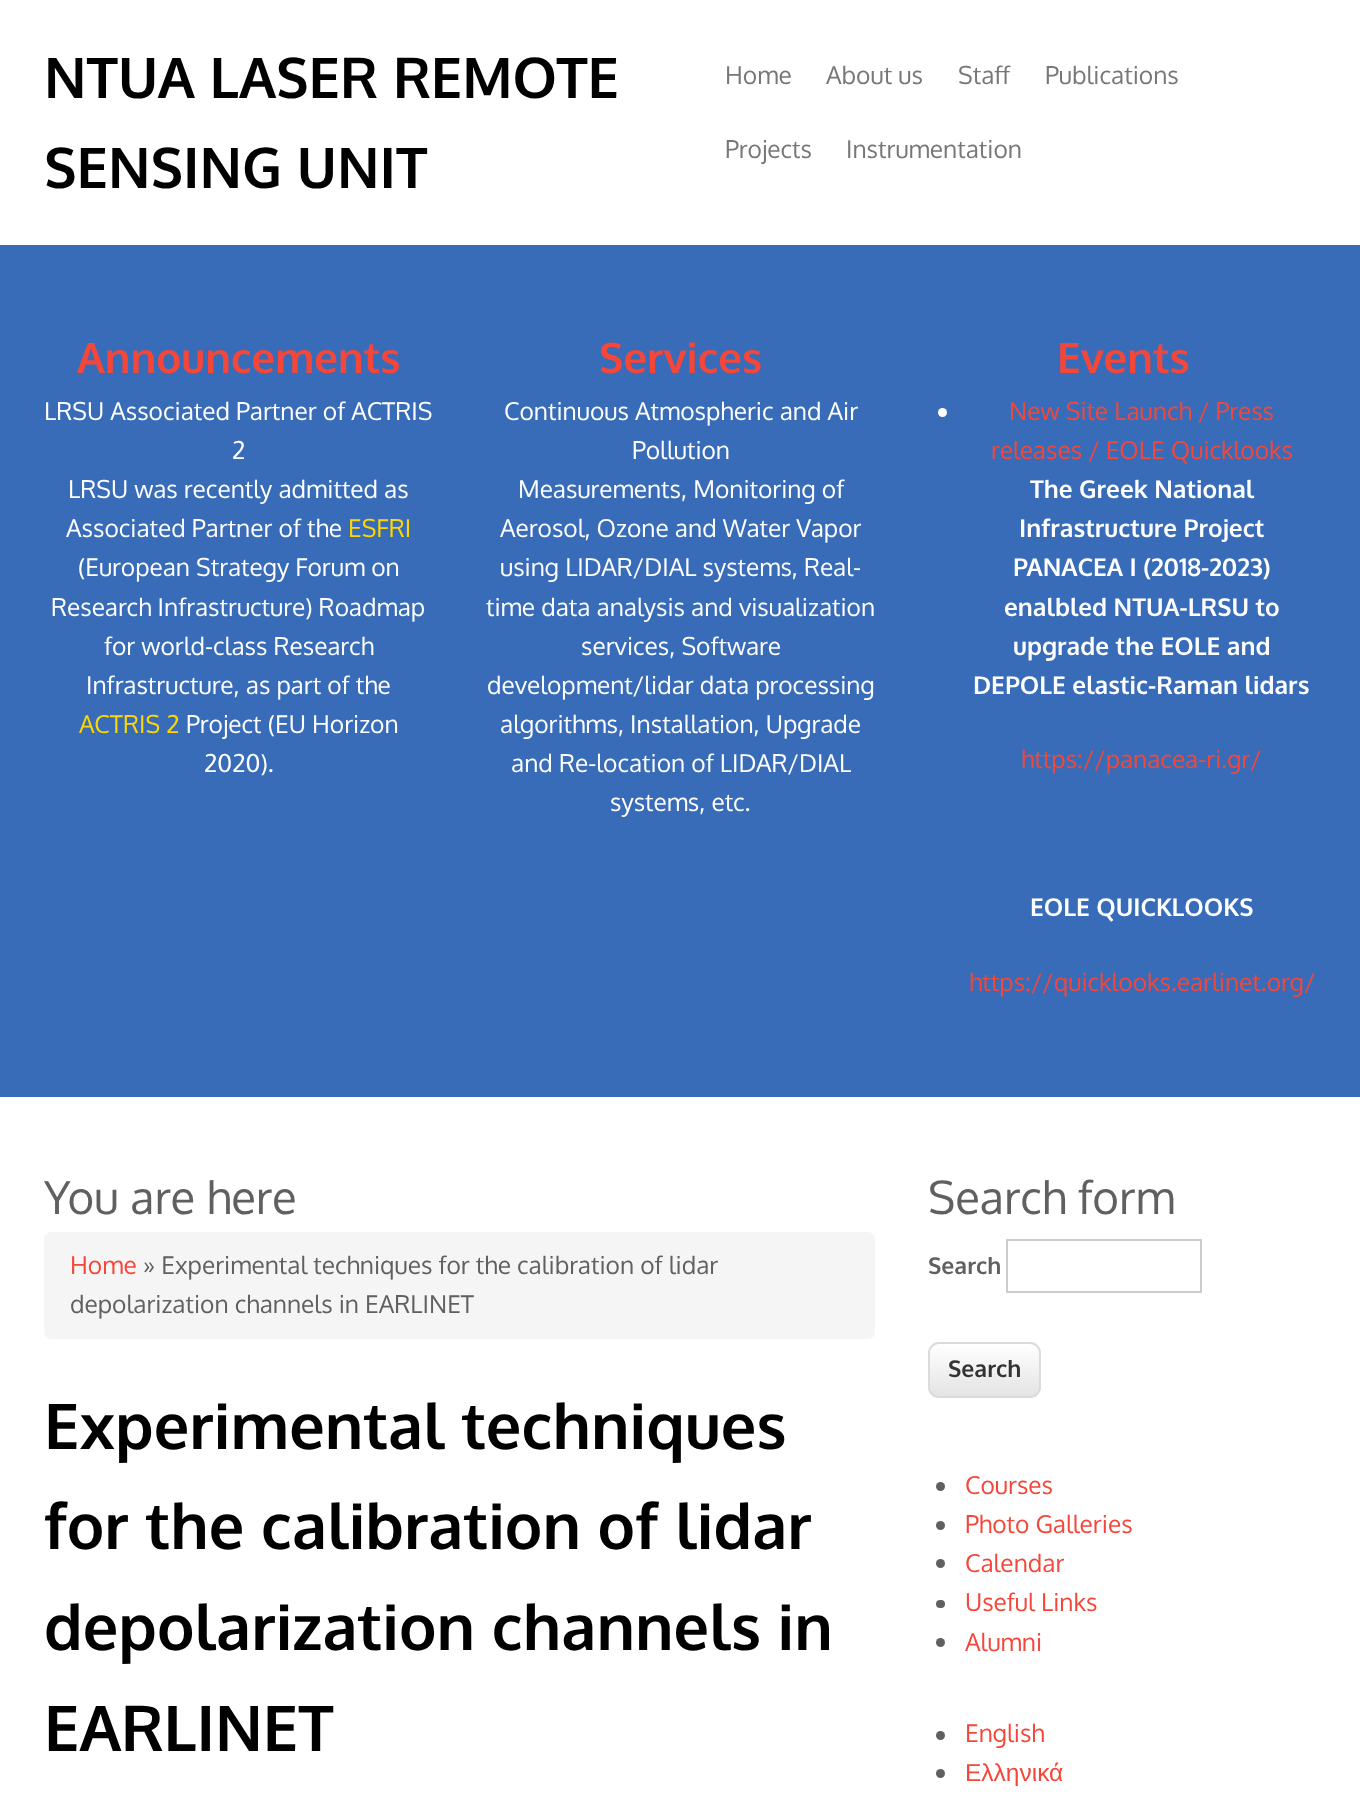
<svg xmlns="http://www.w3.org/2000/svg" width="1360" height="1799">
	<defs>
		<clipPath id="clip1"><rect x="928" y="1342" width="113" height="56" rx="11" /></clipPath>
		<linearGradient id="g1" gradientUnits="userSpaceOnUse" x1="984" y1="1344" x2="984" y2="1397"><stop offset="0" stop-color="#FFFFFF" /><stop offset="1" stop-color="#E3E3E3" /></linearGradient>
	</defs>
	<rect width="100%" height="100%" fill="#FFFFFF" />
	<g font-family="Oxygen" font-size="56" font-weight="700" fill="#000000">
		<text x="44" y="98">NTUA LASER REMOTE</text>
		<text x="44" y="188">SENSING UNIT</text>
	</g>
	<g font-family="Oxygen" font-size="24.5" fill="#777777">
		<text x="725" y="84">Home</text>
		<text x="826" y="84">About us</text>
		<text x="958" y="84">Staff</text>
		<text x="1045" y="84">Publications</text>
		<text x="725" y="158">Projects</text>
		<text x="846" y="158">Instrumentation</text>
	</g>
	<rect x="0" y="245" width="1360" height="852" fill="#386CB8" />
	<text x="77" y="373" font-family="Oxygen" font-size="42" font-weight="700" fill="#F4473A">Announcements</text>
	<g font-family="Oxygen" font-size="24.5" fill="#FFFFFF">
		<text x="44" y="420">LRSU Associated Partner of ACTRIS</text>
		<text x="232" y="459">2</text>
		<text x="68" y="498">LRSU was recently admitted as</text>
		<text x="66" y="537">Associated Partner of the</text>
	</g>
	<text x="348" y="537" font-family="Oxygen" font-size="24.5" fill="#FFD700">ESFRI</text>
	<g font-family="Oxygen" font-size="24.5" fill="#FFFFFF">
		<text x="78" y="576">(European Strategy Forum on</text>
		<text x="51" y="616">Research Infrastructure) Roadmap</text>
		<text x="104" y="655">for world-class Research</text>
		<text x="86" y="694">Infrastructure, as part of the</text>
	</g>
	<text x="79" y="733" font-family="Oxygen" font-size="24.5" fill="#FFD700">ACTRIS 2</text>
	<g font-family="Oxygen" font-size="24.5" fill="#FFFFFF">
		<text x="186" y="733">Project (EU Horizon</text>
		<text x="204" y="772">2020).</text>
	</g>
	<text x="599" y="373" font-family="Oxygen" font-size="42" font-weight="700" fill="#F4473A">Services</text>
	<g font-family="Oxygen" font-size="24.5" fill="#FFFFFF">
		<text x="504" y="420">Continuous Atmospheric and Air</text>
		<text x="632" y="459">Pollution</text>
		<text x="518" y="498">Measurements, Monitoring of</text>
		<text x="500" y="537">Aerosol, Ozone and Water Vapor</text>
		<text x="500" y="576">using LIDAR/DIAL systems, Real-</text>
		<text x="486" y="616">time data analysis and visualization</text>
		<text x="581" y="655">services, Software</text>
		<text x="487" y="694">development/lidar data processing</text>
		<text x="500" y="733">algorithms, Installation, Upgrade</text>
		<text x="511" y="772">and Re-location of LIDAR/DIAL</text>
		<text x="610" y="811">systems, etc.</text>
	</g>
	<text x="1057" y="373" font-family="Oxygen" font-size="42" font-weight="700" fill="#F4473A">Events</text>
	<circle cx="942.5" cy="412.5" r="4.5" fill="#FFFFFF" />
	<g font-family="Oxygen" font-size="24.5" fill="#F4473A">
		<text x="1009" y="420">New Site Launch / Press</text>
		<text x="991" y="459">releases / EOLE Quicklooks</text>
	</g>
	<g font-family="Oxygen" font-size="24.5" font-weight="700" fill="#FFFFFF">
		<text x="1030" y="498">The Greek National</text>
		<text x="1019" y="537">Infrastructure Project</text>
		<text x="1013" y="576">PANACEA I (2018-2023)</text>
		<text x="1004" y="616">enalbled NTUA-LRSU to</text>
		<text x="1013" y="655">upgrade the EOLE and</text>
		<text x="973" y="694">DEPOLE elastic-Raman lidars</text>
	</g>
	<text x="1021" y="768" font-family="Oxygen" font-size="24.5" fill="#F4473A">https://panacea-ri.gr/</text>
	<text x="1030" y="916" font-family="Oxygen" font-size="24.5" font-weight="700" fill="#FFFFFF">EOLE QUICKLOOKS</text>
	<text x="969" y="991" font-family="Oxygen" font-size="24.5" fill="#F4473A">https://quicklooks.earlinet.org/</text>
	<text x="44" y="1214" font-family="Oxygen" font-size="45.5" fill="#606060">You are here</text>
	<rect x="44" y="1232" width="831" height="107" rx="7" fill="#F5F5F5" />
	<text x="70" y="1274" font-family="Oxygen" font-size="24.5" fill="#F4473A">Home</text>
	<g font-family="Oxygen" font-size="24.5" fill="#606060">
		<text x="143" y="1274">» Experimental techniques for the calibration of lidar</text>
		<text x="70" y="1313">depolarization channels in EARLINET</text>
	</g>
	<g font-family="Oxygen" font-size="63" font-weight="700" fill="#000000">
		<text x="44" y="1449">Experimental techniques</text>
		<text x="44" y="1549">for the calibration of lidar</text>
		<text x="44" y="1650">depolarization channels in</text>
		<text x="44" y="1751">EARLINET</text>
	</g>
	<text x="928" y="1214" font-family="Oxygen" font-size="45.5" fill="#606060">Search form</text>
	<text x="928" y="1274" font-family="Oxygen" font-size="23" font-weight="700" fill="#606060">Search</text>
	<rect x="1007" y="1240" width="194" height="52" fill="none" stroke="#CCCCCC" stroke-width="2" />
	<g clip-path="url(#clip1)">
		<rect x="928" y="1344" width="113" height="53" fill="url(#g1)" />
	</g>
	<rect x="929" y="1343" width="111" height="54" rx="10" fill="none" stroke="#DBDBDB" stroke-width="2" />
	<text x="948" y="1377" font-family="Oxygen" font-size="23" font-weight="700" fill="#333333">Search</text>
	<circle cx="940.5" cy="1486.5" r="4.5" fill="#606060" />
	<text x="965" y="1494" font-family="Oxygen" font-size="24.5" fill="#F4473A">Courses</text>
	<circle cx="940.5" cy="1525.5" r="4.5" fill="#606060" />
	<text x="965" y="1533" font-family="Oxygen" font-size="24.5" fill="#F4473A">Photo Galleries</text>
	<circle cx="940.5" cy="1563.5" r="4.5" fill="#606060" />
	<text x="965" y="1572" font-family="Oxygen" font-size="24.5" fill="#F4473A">Calendar</text>
	<rect x="936" y="1600" width="9" height="8" rx="4" fill="#606060" />
	<text x="965" y="1611" font-family="Oxygen" font-size="24.5" fill="#F4473A">Useful Links</text>
	<circle cx="940.5" cy="1642.5" r="4.5" fill="#606060" />
	<text x="965" y="1651" font-family="Oxygen" font-size="24.5" fill="#F4473A">Alumni</text>
	<circle cx="940.5" cy="1735.5" r="4.5" fill="#606060" />
	<text x="965" y="1742" font-family="Oxygen" font-size="24.5" fill="#F4473A">English</text>
	<circle cx="940.5" cy="1773.5" r="4.5" fill="#606060" />
	<text x="965" y="1781" font-family="Liberation Sans" font-size="24.5" fill="#F4473A">Ελληνικά</text>
</svg>
